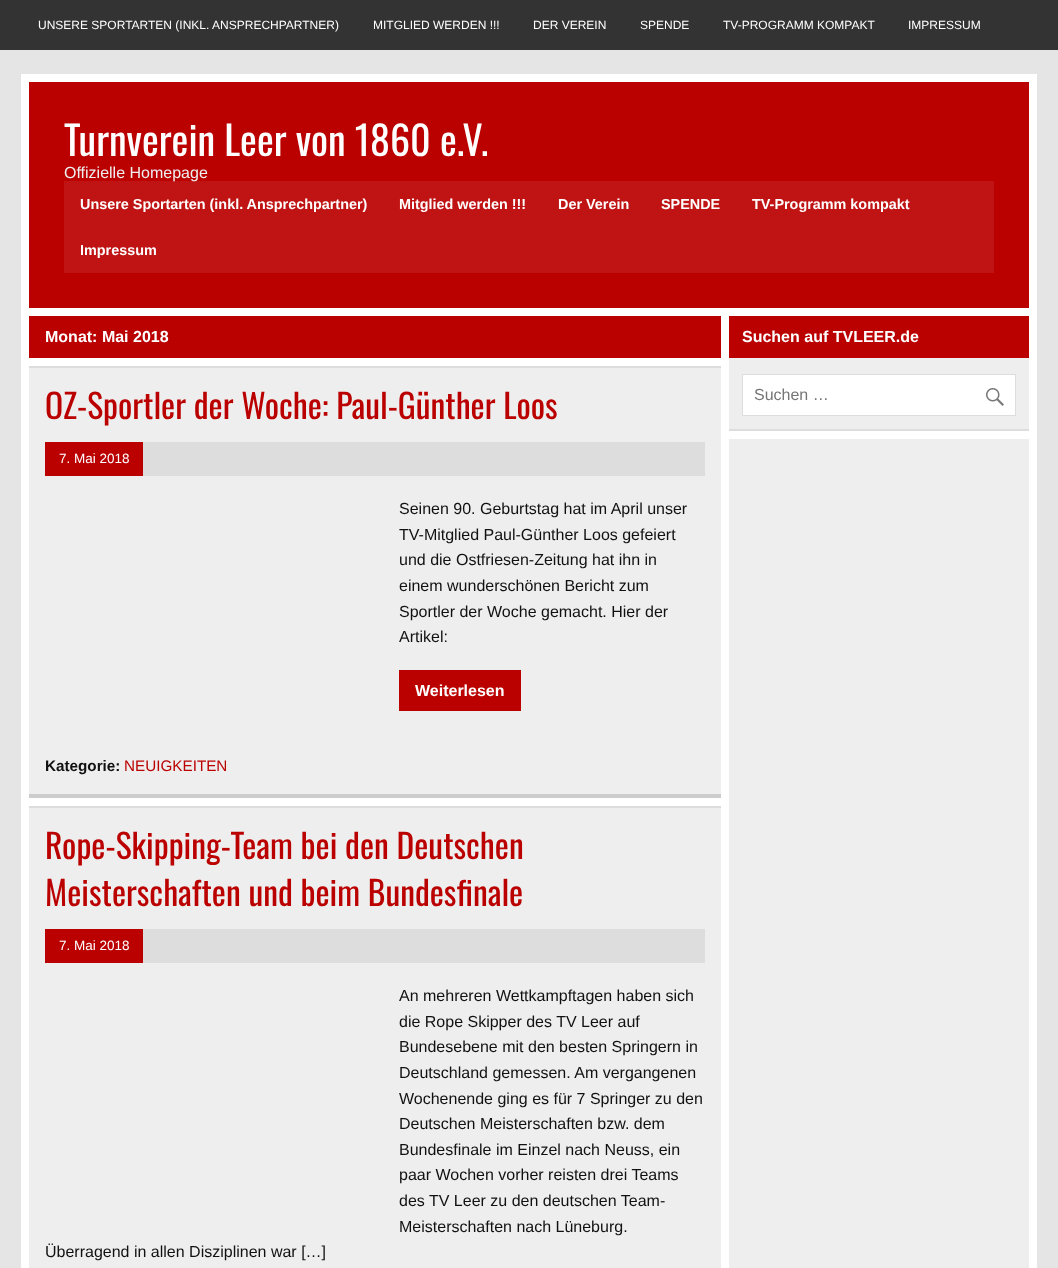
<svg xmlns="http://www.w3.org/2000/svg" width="1058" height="1268">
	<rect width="100%" height="100%" fill="#E5E5E5" />
	<rect x="0" y="0" width="1058" height="50" fill="#333333" />
	<g font-family="Liberation Sans" font-size="12" fill="#FFFFFF">
		<text x="38" y="29">UNSERE SPORTARTEN (INKL. ANSPRECHPARTNER)</text>
		<text x="373" y="29">MITGLIED WERDEN !!!</text>
		<text x="533" y="29">DER VEREIN</text>
		<text x="640" y="29">SPENDE</text>
		<text x="723" y="29">TV-PROGRAMM KOMPAKT</text>
		<text x="908" y="29">IMPRESSUM</text>
	</g>
	<rect x="21" y="74" width="1016" height="1194" fill="#FFFFFF" />
	<rect x="29" y="82" width="1000" height="226" fill="#BB0000" />
	<text x="64" y="156" font-family="Oswald" font-size="40" fill="#FFFFFF">Turnverein Leer von 1860 e.V.</text>
	<text x="64" y="178" font-family="Liberation Sans" font-size="16" fill="#EEEEEE">Offizielle Homepage</text>
	<rect x="64" y="181" width="930" height="92" fill="#FFFFFF" fill-opacity="0.08" />
	<g font-family="Liberation Sans" font-size="14.4" font-weight="700" fill="#FFFFFF">
		<text x="80" y="209">Unsere Sportarten (inkl. Ansprechpartner)</text>
		<text x="399" y="209">Mitglied werden !!!</text>
		<text x="558" y="209">Der Verein</text>
		<text x="661" y="209">SPENDE</text>
		<text x="752" y="209">TV-Programm kompakt</text>
		<text x="80" y="255">Impressum</text>
	</g>
	<rect x="29" y="316" width="692" height="42" fill="#BB0000" />
	<text x="45" y="342" font-family="Liberation Sans" font-size="16" font-weight="700" fill="#FFFFFF">Monat: Mai 2018</text>
	<rect x="29" y="368" width="692" height="426" fill="#EEEEEE" />
	<rect x="29" y="366" width="692" height="2" fill="#DDDDDD" />
	<rect x="29" y="794" width="692" height="4" fill="#CCCCCC" />
	<text x="45" y="419" font-family="Oswald" font-size="33.6" fill="#BB0000">OZ-Sportler der Woche: Paul-Günther Loos</text>
	<rect x="143" y="442" width="562" height="34" fill="#DDDDDD" />
	<rect x="45" y="442" width="98" height="34" fill="#BB0000" />
	<text x="59" y="463" font-family="Liberation Sans" font-size="13.5" fill="#FFFFFF">7. Mai 2018</text>
	<g font-family="Liberation Sans" font-size="16" fill="#111111">
		<text x="399" y="514">Seinen 90. Geburtstag hat im April unser</text>
		<text x="399" y="540">TV-Mitglied Paul-Günther Loos gefeiert</text>
		<text x="399" y="565">und die Ostfriesen-Zeitung hat ihn in</text>
		<text x="399" y="591">einem wunderschönen Bericht zum</text>
		<text x="399" y="617">Sportler der Woche gemacht. Hier der</text>
		<text x="399" y="642">Artikel:</text>
	</g>
	<rect x="399" y="670" width="122" height="41" fill="#BB0000" />
	<text x="415" y="696" font-family="Liberation Sans" font-size="16" font-weight="700" fill="#FFFFFF">Weiterlesen</text>
	<text x="45" y="771" font-family="Liberation Sans" font-size="15.25" font-weight="700" fill="#111111">Kategorie:</text>
	<text x="124" y="771" font-family="Liberation Sans" font-size="15.25" fill="#BB0000">NEUIGKEITEN</text>
	<rect x="29" y="808" width="692" height="460" fill="#EEEEEE" />
	<rect x="29" y="806" width="692" height="2" fill="#DDDDDD" />
	<g font-family="Oswald" font-size="33.6" fill="#BB0000">
		<text x="45" y="859">Rope-Skipping-Team bei den Deutschen</text>
		<text x="45" y="906">Meisterschaften und beim Bundesfinale</text>
	</g>
	<rect x="143" y="929" width="562" height="34" fill="#DDDDDD" />
	<rect x="45" y="929" width="98" height="34" fill="#BB0000" />
	<text x="59" y="950" font-family="Liberation Sans" font-size="13.5" fill="#FFFFFF">7. Mai 2018</text>
	<g font-family="Liberation Sans" font-size="16" fill="#111111">
		<text x="399" y="1001">An mehreren Wettkampftagen haben sich</text>
		<text x="399" y="1027">die Rope Skipper des TV Leer auf</text>
		<text x="399" y="1052">Bundesebene mit den besten Springern in</text>
		<text x="399" y="1078">Deutschland gemessen. Am vergangenen</text>
		<text x="399" y="1104">Wochenende ging es für 7 Springer zu den</text>
		<text x="399" y="1129">Deutschen Meisterschaften bzw. dem</text>
		<text x="399" y="1155">Bundesfinale im Einzel nach Neuss, ein</text>
		<text x="399" y="1180">paar Wochen vorher reisten drei Teams</text>
		<text x="399" y="1206">des TV Leer zu den deutschen Team-</text>
		<text x="399" y="1232">Meisterschaften nach Lüneburg.</text>
		<text x="45" y="1257">Überragend in allen Disziplinen war […]</text>
	</g>
	<rect x="729" y="358" width="300" height="71" fill="#EEEEEE" />
	<rect x="729" y="429" width="300" height="2" fill="#DDDDDD" />
	<rect x="729" y="316" width="300" height="42" fill="#BB0000" />
	<text x="742" y="342" font-family="Liberation Sans" font-size="16" font-weight="700" fill="#FFFFFF">Suchen auf TVLEER.de</text>
	<rect x="742.5" y="374.5" width="273" height="41" fill="#FFFFFF" stroke="#DDDDDD" />
	<text x="754" y="400" font-family="Liberation Sans" font-size="16" fill="#757575">Suchen …</text>
	<image x="986" y="388" width="18" height="18" href="assets/img1.png" />
	<rect x="729" y="439" width="300" height="829" fill="#EEEEEE" />
</svg>
